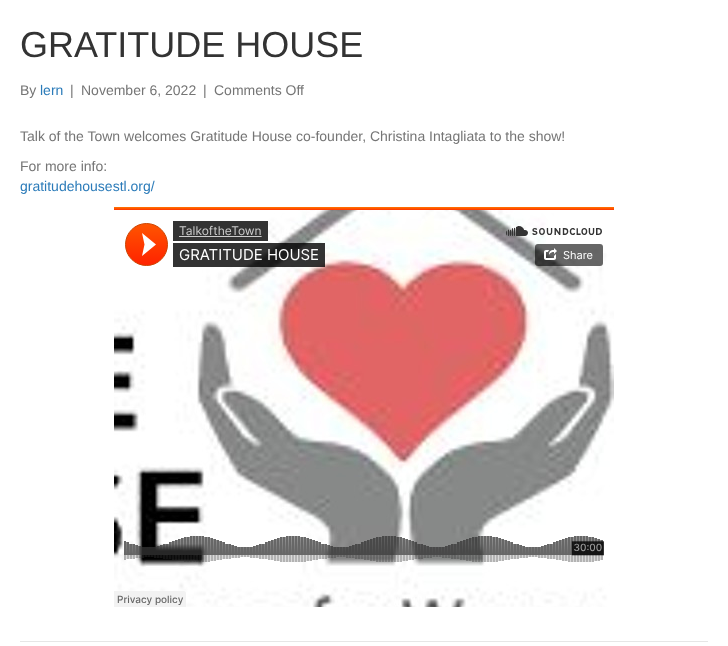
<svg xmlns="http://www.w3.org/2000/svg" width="728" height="646">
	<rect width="100%" height="100%" fill="#FFFFFF" />
	<text x="20" y="57" font-family="Liberation Sans" font-size="36" fill="#333333">GRATITUDE HOUSE</text>
	<text x="20" y="95" font-family="Liberation Sans" font-size="14" fill="#757575">By</text>
	<text x="40" y="95" font-family="Liberation Sans" font-size="14" fill="#2B7BB9">lern</text>
	<g font-family="Liberation Sans" font-size="14" fill="#757575">
		<text x="70" y="95">|</text>
		<text x="81" y="95">November 6, 2022</text>
		<text x="203" y="95">|</text>
		<text x="214" y="95">Comments Off</text>
		<text x="20" y="141">Talk of the Town welcomes Gratitude House co-founder, Christina Intagliata to the show!</text>
		<text x="20" y="171">For more info:</text>
	</g>
	<text x="20" y="191" font-family="Liberation Sans" font-size="14" fill="#2B7BB9">gratitudehousestl.org/</text>
	<image x="114" y="207" width="500" height="400" href="assets/img1.png" />
	<rect x="20" y="641" width="688" height="1" fill="#E6E6E6" />
</svg>
